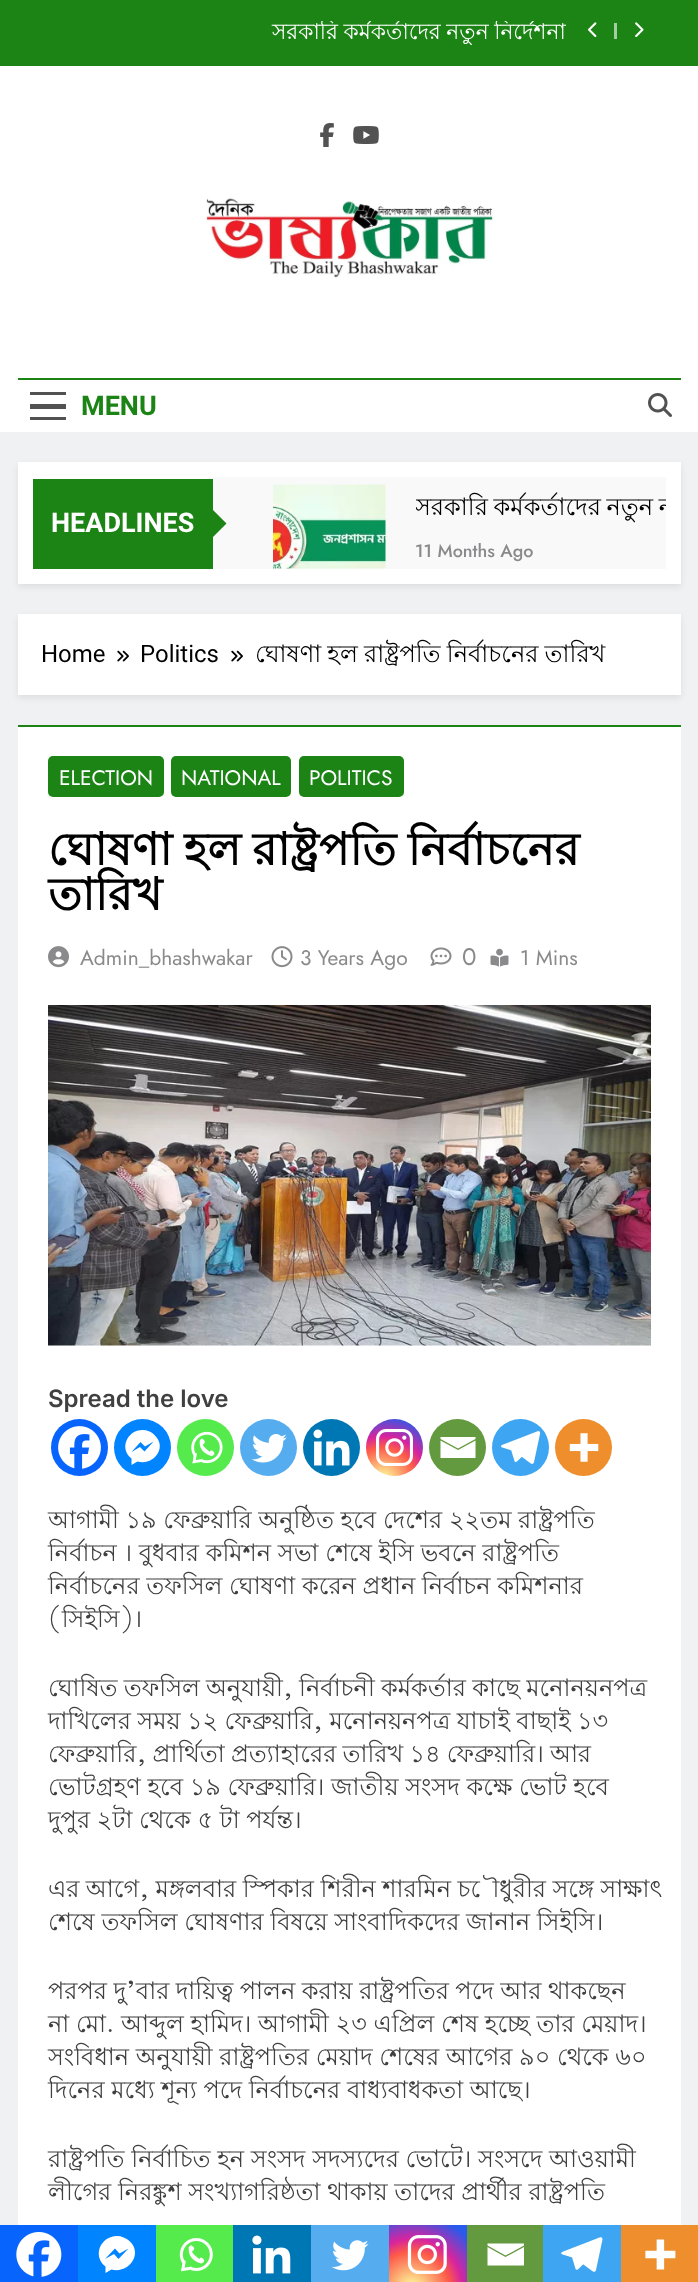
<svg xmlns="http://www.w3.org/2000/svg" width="698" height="2282">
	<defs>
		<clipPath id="clip1"><rect x="42" y="21" width="524" height="24" /></clipPath>
		<clipPath id="clip2"><rect x="416" y="488" width="250" height="40" /></clipPath>
		<radialGradient id="g1" gradientUnits="userSpaceOnUse" cx="383" cy="1480" r="73"><stop offset="0" stop-color="#FDF497" /><stop offset="0.05" stop-color="#FDF497" /><stop offset="0.45" stop-color="#FD5949" /><stop offset="0.6" stop-color="#D6249F" /><stop offset="0.9" stop-color="#285AEB" /></radialGradient>
		<radialGradient id="g2" gradientUnits="userSpaceOnUse" cx="412" cy="2289" r="84"><stop offset="0" stop-color="#FDF497" /><stop offset="0.05" stop-color="#FDF497" /><stop offset="0.45" stop-color="#FD5949" /><stop offset="0.6" stop-color="#D6249F" /><stop offset="0.9" stop-color="#285AEB" /></radialGradient>
	</defs>
	<rect width="100%" height="100%" fill="#F0F1F2" />
	<rect x="0" y="0" width="698" height="66" fill="#1B8415" />
	<g clip-path="url(#clip1)">
		<text x="272" y="39" word-spacing="-0.5" font-family="Lohit Bengali" font-size="21.75" fill="#FFFFFF">সরকারি কর্মকর্তাদের নতুন নির্দেশনা</text>
	</g>
	<image x="588" y="22" width="9" height="15" href="assets/img1.png" />
	<rect x="614" y="23" width="3" height="16" fill="#A4CEA1" />
	<image x="635" y="22" width="9" height="15" href="assets/img2.png" />
	<rect x="0" y="66" width="698" height="366" fill="#FFFFFF" />
	<image x="320" y="123" width="14" height="24" href="assets/img3.png" />
	<image x="353" y="126" width="26" height="18" href="assets/img4.png" />
	<image x="206" y="198" width="289" height="80" href="assets/img5.png" />
	<rect x="18" y="378" width="663" height="2" fill="#1B8415" />
	<rect x="30" y="392" width="36" height="3" fill="#525252" />
	<rect x="30" y="404" width="36" height="5" fill="#525252" />
	<rect x="30" y="417" width="36" height="3" fill="#525252" />
	<text x="81" y="415" font-family="Roboto" font-size="27" font-weight="700" fill="#1B8415">MENU</text>
	<image x="648" y="393" width="24" height="24" href="assets/img6.png" />
	<rect x="18" y="465" width="663" height="122" fill="#000000" fill-opacity="0.08" filter="blur(3px)" />
	<rect x="18" y="462" width="663" height="122" fill="#FFFFFF" />
	<rect x="33" y="479" width="180" height="90" fill="#1B8415" />
	<text x="51" y="532" font-family="Roboto" font-size="27" font-weight="700" fill="#FFFFFF">HEADLINES</text>
	<rect x="213" y="477" width="453" height="92" fill="#F9F9F9" />
	<path d="M211.5 538.5V508.5L226.5 523.5Z" fill="#1B8415" />
	<image x="273" y="484" width="113" height="85" href="assets/img7.png" />
	<g clip-path="url(#clip2)">
		<text x="415" y="515" word-spacing="-1" font-family="Lohit Bengali" font-size="24" fill="#000000">সরকারি কর্মকর্তাদের নতুন ন</text>
	</g>
	<text x="415" y="557" font-family="Jost" font-size="18" font-weight="500" fill="#8A8A8C">11 Months Ago</text>
	<rect x="18" y="617" width="663" height="81" fill="#000000" fill-opacity="0.08" filter="blur(3px)" />
	<rect x="18" y="614" width="663" height="81" fill="#FFFFFF" />
	<text x="41" y="662" font-family="Roboto" font-size="24" fill="#000000">Home</text>
	<image x="117" y="650" width="12" height="12" href="assets/img8.png" />
	<text x="140" y="662" font-family="Roboto" font-size="24" fill="#000000">Politics</text>
	<image x="231" y="650" width="12" height="12" href="assets/img8.png" />
	<text x="255" y="662" word-spacing="-0.5" font-family="Lohit Bengali" font-size="24" fill="#000000">ঘোষণা হল রাষ্ট্রপতি নির্বাচনের তারিখ</text>
	<rect x="18" y="727" width="663" height="1498" fill="#FFFFFF" />
	<rect x="18" y="725" width="663" height="2" fill="#1B8415" />
	<rect x="48" y="756" width="116" height="41" rx="5" fill="#1B8415" />
	<text x="59" y="785" font-family="Jost" font-size="21" fill="#FFFFFF">ELECTION</text>
	<rect x="171" y="756" width="120" height="41" rx="5" fill="#1B8415" />
	<text x="181" y="785" font-family="Jost" font-size="21" fill="#FFFFFF">NATIONAL</text>
	<rect x="299" y="756" width="105" height="41" rx="5" fill="#1B8415" />
	<text x="309" y="785" font-family="Jost" font-size="21" fill="#FFFFFF">POLITICS</text>
	<g font-family="Lohit Bengali" font-size="45" font-weight="700" fill="#000000">
		<text x="48" y="865" word-spacing="-1">ঘোষণা হল রাষ্ট্রপতি নির্বাচনের</text>
		<text x="48" y="910">তারিখ</text>
	</g>
	<image x="48" y="946" width="21" height="22" href="assets/img9.png" />
	<text x="80" y="965" font-family="Jost" font-size="21" fill="#8A8A8C">Admin_bhashwakar</text>
	<image x="271" y="946" width="22" height="22" href="assets/img10.png" />
	<text x="300" y="965" font-family="Jost" font-size="21" fill="#8A8A8C">3 Years Ago</text>
	<image x="430" y="947" width="22" height="19" href="assets/img11.png" />
	<text x="462" y="965" font-family="Jost" font-size="24" fill="#8A8A8C">0</text>
	<image x="490" y="948" width="19" height="19" href="assets/img12.png" />
	<text x="520" y="965" font-family="Jost" font-size="21" fill="#8A8A8C">1 Mins</text>
	<image x="48" y="1005" width="603" height="341" href="assets/img13.png" />
	<text x="48" y="1407" font-family="Inter" font-size="24" font-weight="600" fill="#404040">Spread the love</text>
	<circle cx="79.5" cy="1447.5" r="28.5" fill="#0765FE" />
	<image x="58" y="1426" width="43" height="43" href="assets/img14.png" />
	<circle cx="142.5" cy="1447.5" r="28.5" fill="#0084FF" />
	<path d="M142.5 1430C127 1430 119 1449 131.5 1458.5V1465L137.5 1461.5C153.5 1466 168 1447.5 154.5 1435C151.5 1431.5 147 1430 142.5 1430ZM144.5 1451.5L140 1447L131.5 1452L140.5 1442L145 1446.5L153.5 1441.5Z" fill="#FFFFFF" />
	<circle cx="205.5" cy="1447.5" r="28.5" fill="#55EB4C" />
	<image x="191" y="1431" width="32" height="33" href="assets/img15.png" />
	<circle cx="268.5" cy="1447.5" r="28.5" fill="#55ACEE" />
	<image x="252" y="1434" width="35" height="29" href="assets/img16.png" />
	<circle cx="331.5" cy="1447.5" r="28.5" fill="#0077B5" />
	<image x="313" y="1429" width="37" height="37" href="assets/img17.png" />
	<circle cx="394.5" cy="1447.5" r="28.5" fill="url(#g1)" />
	<image x="376" y="1429" width="37" height="37" href="assets/img18.png" />
	<circle cx="457.5" cy="1447.5" r="28.5" fill="#649A3F" />
	<path d="M439 1437H475.5V1439L458 1448.5L440.5 1439V1437M440.5 1440.5L458 1450L475.5 1440.5V1458H440.5V1440.5" fill="#FFFFFF" />
	<circle cx="520.5" cy="1447.5" r="28.5" fill="#3DA5F1" />
	<image x="500" y="1431" width="41" height="33" href="assets/img19.png" />
	<circle cx="583.5" cy="1447.5" r="28.5" fill="#EE8E2D" />
	<image x="569" y="1433" width="30" height="29" href="assets/img20.png" />
	<g font-family="Lohit Bengali" font-size="24" fill="#404040">
		<text x="48" y="1528">আগামী ১৯ ফেব্রুয়ারি অনুষ্ঠিত হবে দেশের ২২তম রাষ্ট্রপতি</text>
		<text x="48" y="1561">নির্বাচন । বুধবার কমিশন সভা শেষে ইসি ভবনে রাষ্ট্রপতি</text>
		<text x="48" y="1594">নির্বাচনের তফসিল ঘোষণা করেন প্রধান নির্বাচন কমিশনার</text>
		<text x="48" y="1627">(সিইসি)।</text>
		<text x="48" y="1696" word-spacing="-0.5">ঘোষিত তফসিল অনুযায়ী, নির্বাচনী কর্মকর্তার কাছে মনোনয়নপত্র</text>
		<text x="48" y="1729" word-spacing="-0.25">দাখিলের সময় ১২ ফেব্রুয়ারি, মনোনয়নপত্র যাচাই বাছাই ১৩</text>
		<text x="48" y="1762" word-spacing="-0.5">ফেব্রুয়ারি, প্রার্থিতা প্রত্যাহারের তারিখ ১৪ ফেব্রুয়ারি। আর</text>
		<text x="48" y="1795">ভোটগ্রহণ হবে ১৯ ফেব্রুয়ারি। জাতীয় সংসদ কক্ষে ভোট হবে</text>
		<text x="48" y="1828">দুপুর ২টা থেকে ৫ টা পর্যন্ত।</text>
		<text x="48" y="1897" word-spacing="-0.25">এর আগে, মঙ্গলবার স্পিকার শিরীন শারমিন চৌধুরীর সঙ্গে সাক্ষাৎ</text>
		<text x="48" y="1930">শেষে তফসিল ঘোষণার বিষয়ে সাংবাদিকদের জানান সিইসি।</text>
		<text x="48" y="1999" word-spacing="-0.25">পরপর দু’বার দায়িত্ব পালন করায় রাষ্ট্রপতির পদে আর থাকছেন</text>
		<text x="48" y="2032">না মো. আব্দুল হামিদ। আগামী ২৩ এপ্রিল শেষ হচ্ছে তার মেয়াদ।</text>
		<text x="48" y="2065">সংবিধান অনুযায়ী রাষ্ট্রপতির মেয়াদ শেষের আগের ৯০ থেকে ৬০</text>
		<text x="48" y="2098">দিনের মধ্যে শূন্য পদে নির্বাচনের বাধ্যবাধকতা আছে।</text>
		<text x="48" y="2167">রাষ্ট্রপতি নির্বাচিত হন সংসদ সদস্যদের ভোটে। সংসদে আওয়ামী</text>
		<text x="48" y="2200">লীগের নিরঙ্কুশ সংখ্যাগরিষ্ঠতা থাকায় তাদের প্রার্থীর রাষ্ট্রপতি</text>
	</g>
	<rect x="0" y="2225" width="78" height="57" fill="#0765FE" />
	<image x="16" y="2232" width="46" height="45" href="assets/img21.png" />
	<rect x="78" y="2225" width="78" height="57" fill="#0084FF" />
	<path d="M117 2236C100.5 2236 92 2256 105.5 2266.5V2273L111.5 2269.5C128.5 2274 143.5 2254 129.5 2241C126 2238 121.5 2236 117 2236ZM118.5 2259L114 2254L105 2259L115 2248.5L119.5 2253.5L128.5 2248.5Z" fill="#FFFFFF" />
	<rect x="156" y="2225" width="77" height="57" fill="#55EB4C" />
	<image x="179" y="2238" width="34" height="34" href="assets/img22.png" />
	<rect x="233" y="2225" width="78" height="57" fill="#0077B5" />
	<image x="252" y="2235" width="39" height="39" href="assets/img23.png" />
	<rect x="311" y="2225" width="78" height="57" fill="#55ACEE" />
	<image x="331" y="2240" width="38" height="31" href="assets/img24.png" />
	<rect x="389" y="2225" width="78" height="57" fill="url(#g2)" />
	<image x="407" y="2235" width="40" height="39" href="assets/img25.png" />
	<rect x="467" y="2225" width="76" height="57" fill="#649A3F" />
	<path d="M485.5 2243.5H524V2245.5L505.5 2255.5L487.5 2245.5V2243.5M487.5 2247L505.5 2257L524 2247V2265.5H487.5V2247" fill="#FFFFFF" />
	<rect x="543" y="2225" width="78" height="57" fill="#3DA5F1" />
	<image x="561" y="2237" width="42" height="35" href="assets/img26.png" />
	<rect x="621" y="2225" width="77" height="57" fill="#EE8E2D" />
	<image x="645" y="2239" width="31" height="31" href="assets/img27.png" />
</svg>
